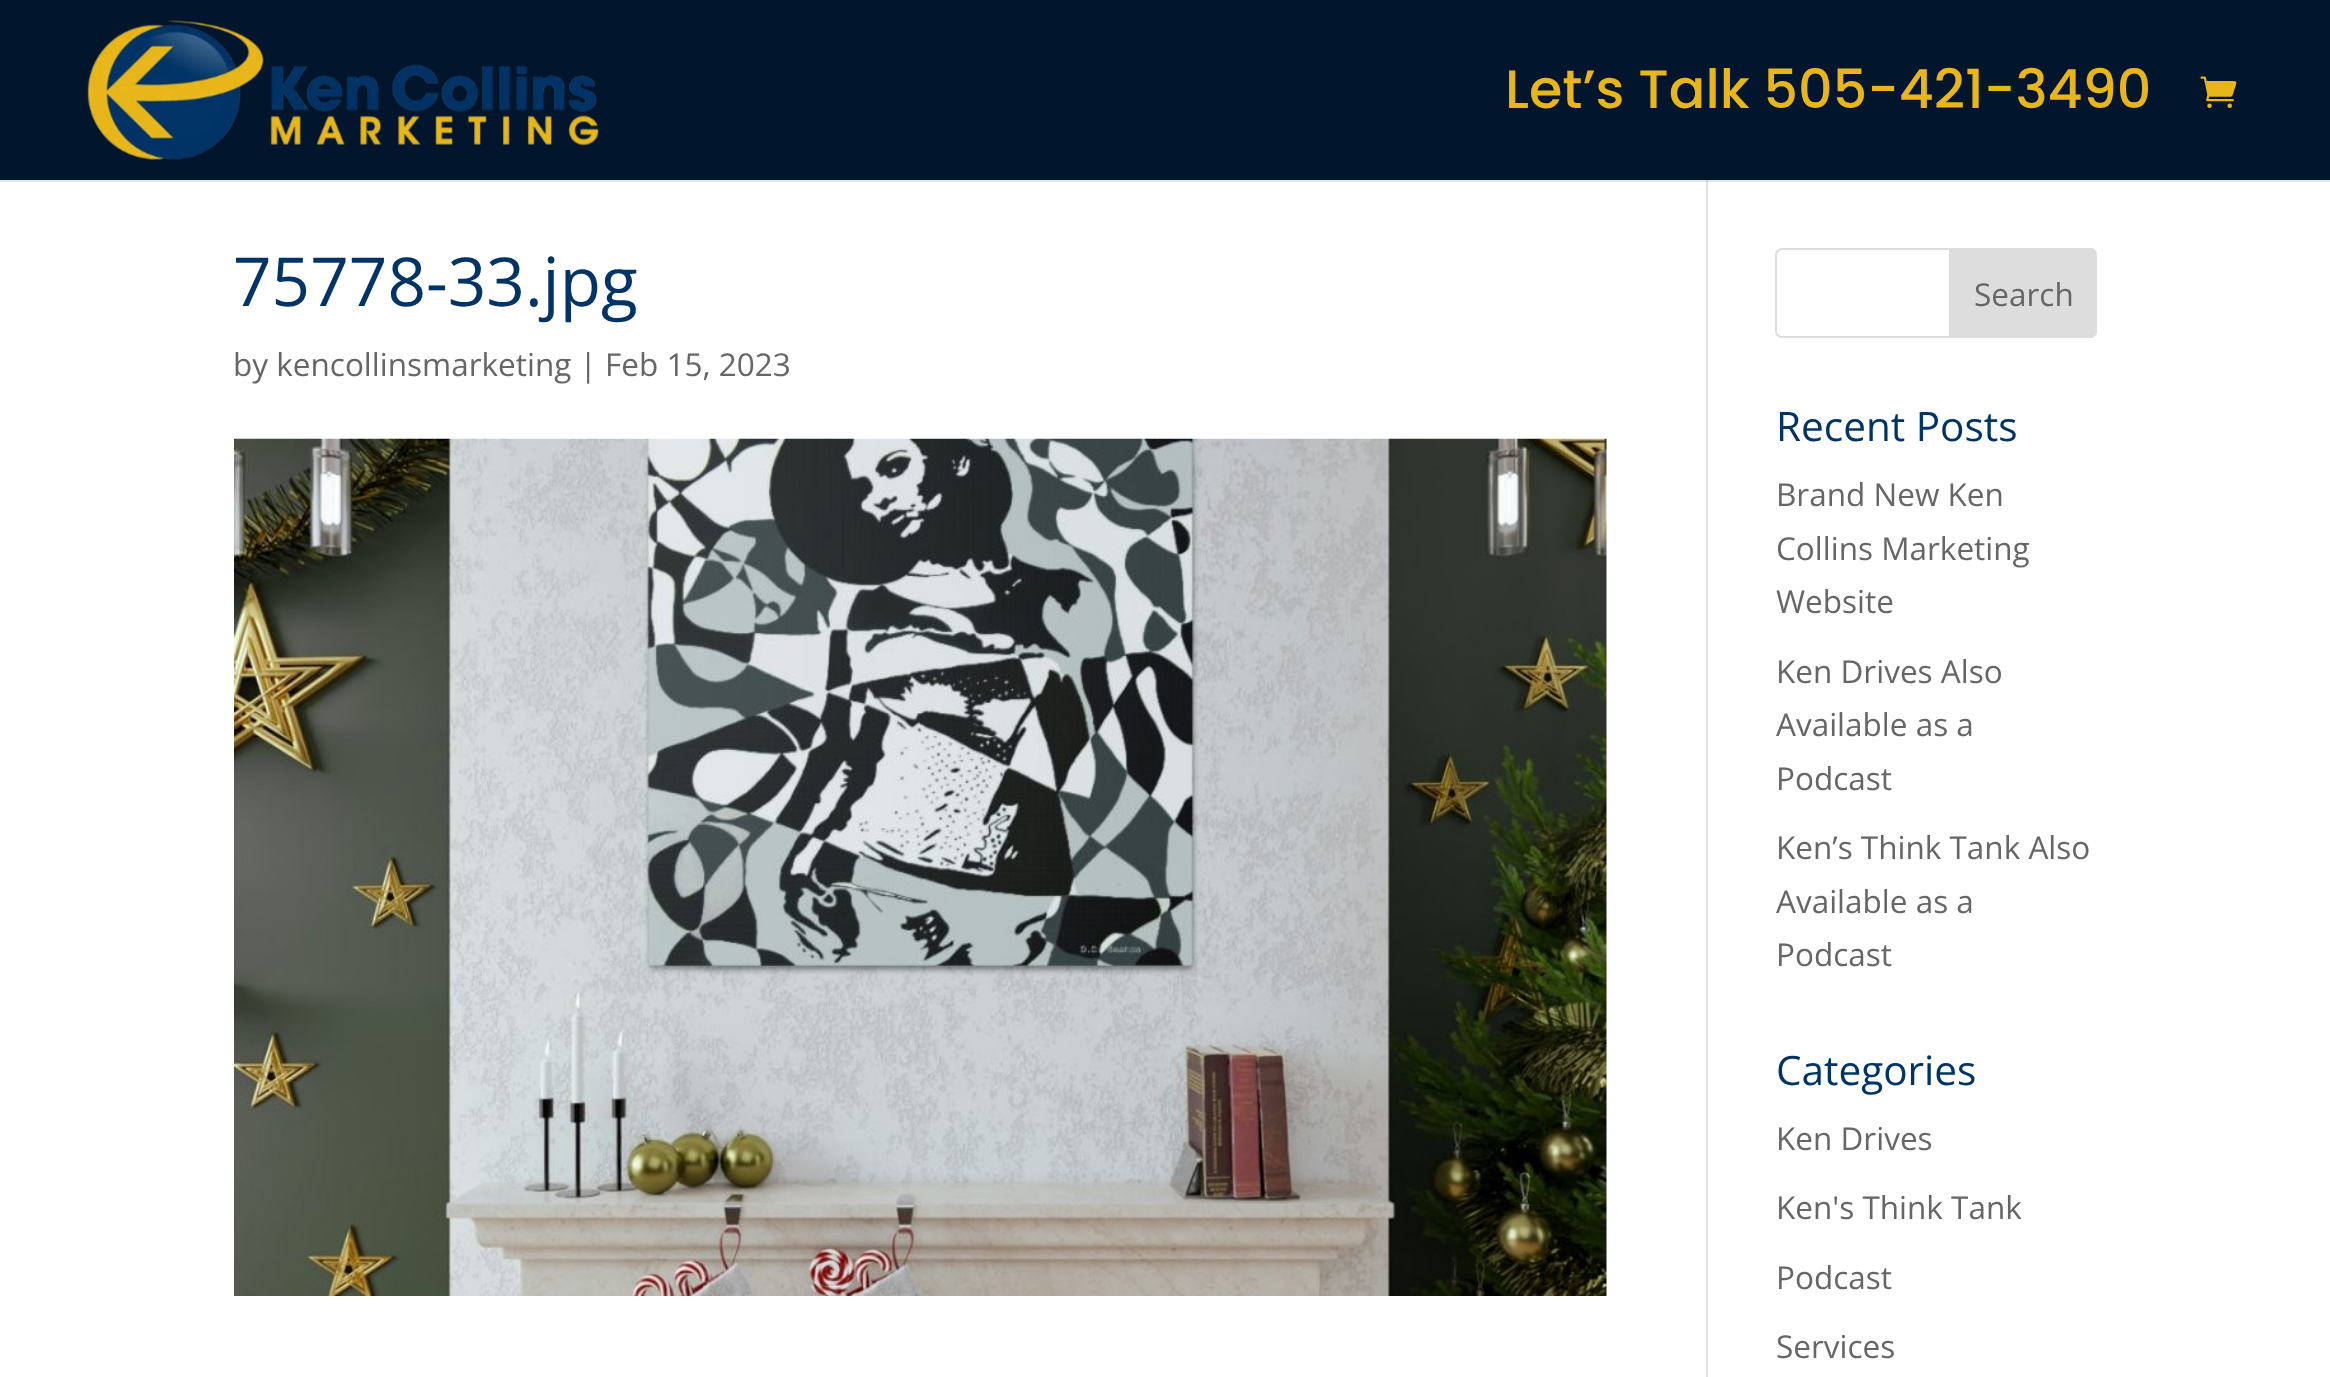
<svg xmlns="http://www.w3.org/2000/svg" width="2330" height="1377">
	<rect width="100%" height="100%" fill="#FFFFFF" />
	<rect x="0" y="0" width="2330" height="180" fill="#01152D" />
	<image x="87" y="20" width="512" height="140" href="assets/img1.png" />
	<text x="1505" y="108" font-family="Poppins" font-size="54" font-weight="500" fill="#E8B619">Let’s Talk 505-421-3490</text>
	<image x="2200" y="76" width="37" height="32" href="assets/img2.png" />
	<rect x="0" y="180" width="2330" height="2" fill="#E6E6E6" />
	<rect x="1706" y="182" width="2" height="1195" fill="#E2E2E2" />
	<rect x="1706" y="180" width="2" height="2" fill="#CBCBCB" />
	<text x="233" y="306" font-family="Open Sans" font-size="67.5" fill="#003466">75778-33.jpg</text>
	<text x="233" y="376" font-family="Open Sans" font-size="31.5" fill="#666666">by kencollinsmarketing | Feb 15, 2023</text>
	<image x="234" y="438" width="1373" height="858" href="assets/img3.png" />
	<rect x="1776" y="249" width="320" height="88" rx="6" fill="none" stroke="#DDDDDD" stroke-width="2" />
	<path d="M1950 249H2090C2093.5 249 2096 251.5 2096 255V331C2096 334.5 2093.5 337 2090 337H1950Z" fill="#DDDDDD" stroke="#DDDDDD" stroke-width="2" />
	<text x="1974" y="306" font-family="Open Sans" font-size="31.5" fill="#666666">Search</text>
	<text x="1776" y="441" font-family="Open Sans" font-size="40.5" fill="#003466">Recent Posts</text>
	<g font-family="Open Sans" font-size="31.5" fill="#666666">
		<text x="1776" y="506">Brand New Ken</text>
		<text x="1776" y="560">Collins Marketing</text>
		<text x="1776" y="613">Website</text>
		<text x="1776" y="683">Ken Drives Also</text>
		<text x="1776" y="736">Available as a</text>
		<text x="1776" y="790">Podcast</text>
		<text x="1776" y="859">Ken’s Think Tank Also</text>
		<text x="1776" y="913">Available as a</text>
		<text x="1776" y="966">Podcast</text>
	</g>
	<text x="1776" y="1085" font-family="Open Sans" font-size="40.5" fill="#003466">Categories</text>
	<g font-family="Open Sans" font-size="31.5" fill="#666666">
		<text x="1776" y="1150">Ken Drives</text>
		<text x="1776" y="1219">Ken's Think Tank</text>
		<text x="1776" y="1289">Podcast</text>
		<text x="1776" y="1358">Services</text>
	</g>
</svg>
